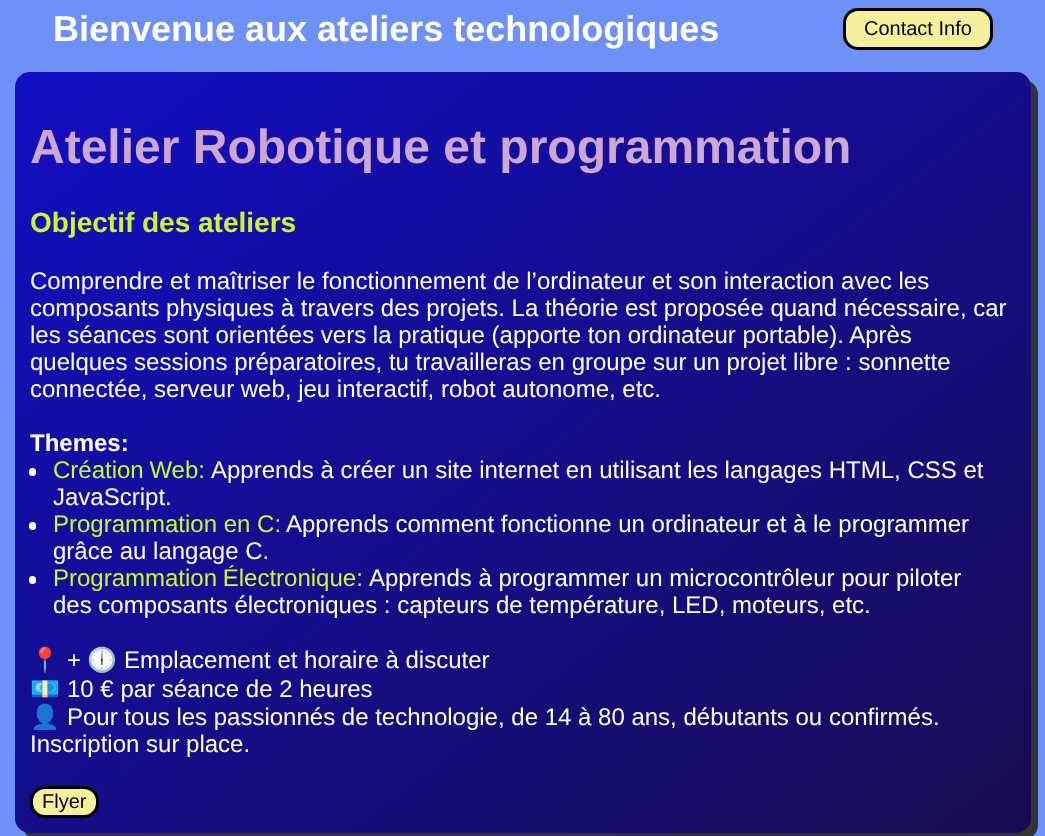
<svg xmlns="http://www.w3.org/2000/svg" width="1045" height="836">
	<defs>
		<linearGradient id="g1" gradientUnits="userSpaceOnUse" x1="158" y1="-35" x2="888" y2="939"><stop offset="0" stop-color="#120FC4" /><stop offset="1" stop-color="#170C51" /></linearGradient>
	</defs>
	<rect width="100%" height="100%" fill="#6D91F6" />
	<text x="53" y="41" font-family="Liberation Sans" font-size="36" font-weight="700" fill="#FFFFFF">Bienvenue aux ateliers technologiques</text>
	<rect x="844.5" y="9.5" width="147" height="39" rx="13.5" fill="#F5F09B" stroke="#000000" stroke-width="3" />
	<text x="864" y="35" font-family="Liberation Sans" font-size="20" fill="#000000">Contact Info</text>
	<path d="M24 831C27 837 32 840 38 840H1023C1031 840 1038 833 1038 825V95C1038 89 1035 84 1029 81C1030 83 1030 85 1030 87V818C1030 826 1024 832 1016 832H30C28 832 26 832 24 831Z" fill="#333333" />
	<rect x="15" y="72" width="1016" height="761" rx="15" fill="url(#g1)" />
	<text x="30" y="163" font-family="Liberation Sans" font-size="48" font-weight="700" fill="#CEA8D2">Atelier Robotique et programmation</text>
	<text x="30" y="232" font-family="Liberation Sans" font-size="28" font-weight="700" fill="#CEF62D">Objectif des ateliers</text>
	<g font-family="Liberation Sans" font-size="24" fill="#FFFFFF">
		<text x="30" y="289">Comprendre et maîtriser le fonctionnement de l’ordinateur et son interaction avec les</text>
		<text x="30" y="316">composants physiques à travers des projets. La théorie est proposée quand nécessaire, car</text>
		<text x="30" y="343">les séances sont orientées vers la pratique (apporte ton ordinateur portable). Après</text>
		<text x="30" y="370">quelques sessions préparatoires, tu travailleras en groupe sur un projet libre : sonnette</text>
		<text x="30" y="397">connectée, serveur web, jeu interactif, robot autonome, etc.</text>
	</g>
	<text x="30" y="451" font-family="Liberation Sans" font-size="24" font-weight="700" fill="#FFFFFF">Themes:</text>
	<rect x="29" y="468" width="7" height="8" rx="3.5" fill="#FFFFFF" />
	<text x="53" y="478" word-spacing="-1" font-family="Liberation Sans" font-size="24" fill="#CEF62D">Création Web:</text>
	<g font-family="Liberation Sans" font-size="24" fill="#FFFFFF">
		<text x="211" y="478">Apprends à créer un site internet en utilisant les langages HTML, CSS et</text>
		<text x="53" y="505">JavaScript.</text>
	</g>
	<rect x="29" y="522" width="7" height="8" rx="3.5" fill="#FFFFFF" />
	<text x="53" y="532" font-family="Liberation Sans" font-size="24" fill="#CEF62D">Programmation en C:</text>
	<g font-family="Liberation Sans" font-size="24" fill="#FFFFFF">
		<text x="286" y="532">Apprends comment fonctionne un ordinateur et à le programmer</text>
		<text x="53" y="559">grâce au langage C.</text>
	</g>
	<rect x="29" y="576" width="7" height="8" rx="3.5" fill="#FFFFFF" />
	<text x="53" y="586" word-spacing="-1" font-family="Liberation Sans" font-size="24" fill="#CEF62D">Programmation Électronique:</text>
	<g font-family="Liberation Sans" font-size="24" fill="#FFFFFF">
		<text x="369" y="586">Apprends à programmer un microcontrôleur pour piloter</text>
		<text x="53" y="613">des composants électroniques : capteurs de température, LED, moteurs, etc.</text>
	</g>
	<text x="30" y="668" font-family="Noto Color Emoji" font-size="24" fill="#FFFFFF">📍</text>
	<text x="67" y="668" font-family="Liberation Sans" font-size="24" fill="#FFFFFF">+</text>
	<text x="87" y="668" font-family="Noto Color Emoji" font-size="24" fill="#FFFFFF">🕕</text>
	<text x="124" y="668" font-family="Liberation Sans" font-size="24" fill="#FFFFFF">Emplacement et horaire à discuter</text>
	<text x="30" y="697" font-family="Noto Color Emoji" font-size="24" fill="#FFFFFF">💶</text>
	<text x="67" y="697" font-family="Liberation Sans" font-size="24" fill="#FFFFFF">10 € par séance de 2 heures</text>
	<text x="30" y="725" font-family="Noto Color Emoji" font-size="24" fill="#FFFFFF">👤</text>
	<g font-family="Liberation Sans" font-size="24" fill="#FFFFFF">
		<text x="67" y="725">Pour tous les passionnés de technologie, de 14 à 80 ans, débutants ou confirmés.</text>
		<text x="30" y="752">Inscription sur place.</text>
	</g>
	<rect x="31.5" y="787.5" width="66" height="29" rx="13.5" fill="#F5F09B" stroke="#000000" stroke-width="3" />
	<text x="42" y="808" font-family="Liberation Sans" font-size="20" fill="#000000">Flyer</text>
</svg>
